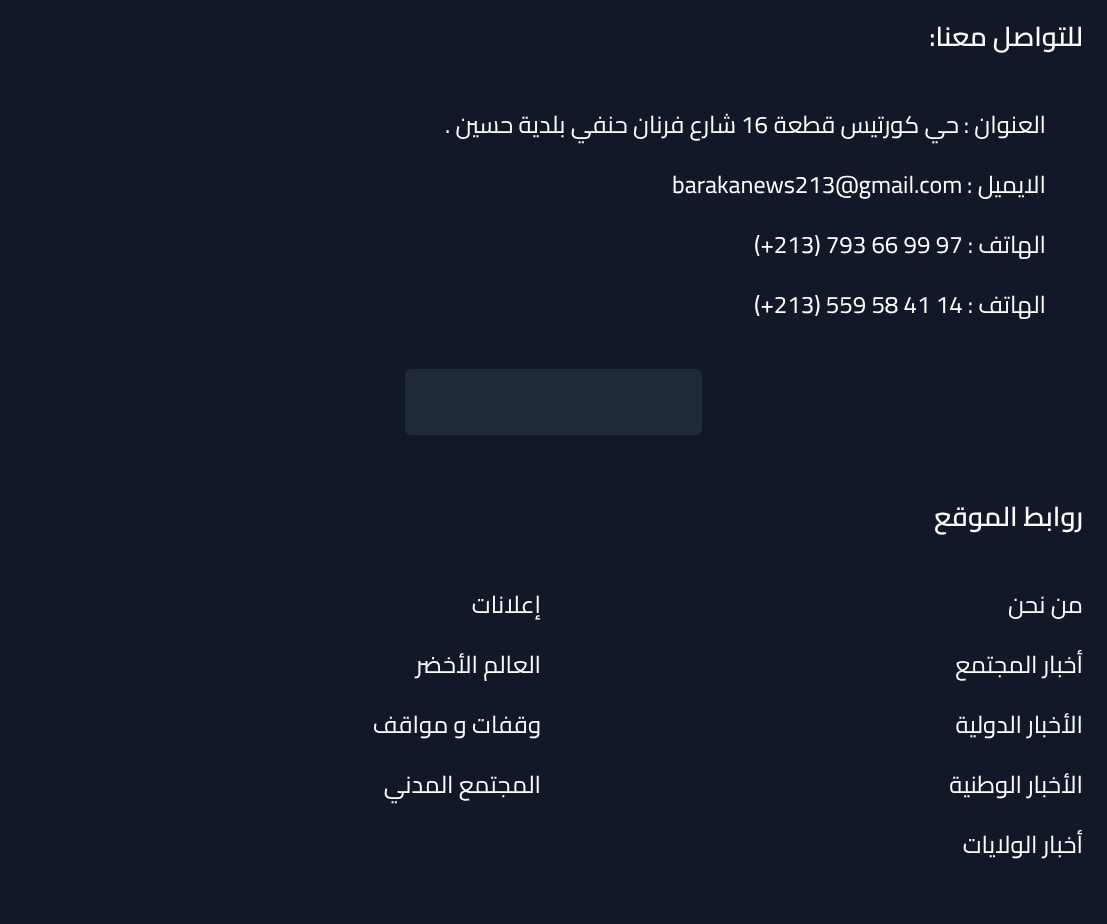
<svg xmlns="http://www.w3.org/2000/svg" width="1107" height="924">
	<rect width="100%" height="100%" fill="#111827" />
	<text x="1083" y="46" font-family="Cairo" font-size="27" font-weight="600" direction="rtl" fill="#FFFFFF">للتواصل معنا:</text>
	<g font-family="Cairo" font-size="24" direction="rtl" fill="#FFFFFF">
		<text x="1046" y="133">العنوان :</text>
		<text x="959" y="133">حي كورتيس قطعة</text>
	</g>
	<text x="741" y="133" font-family="Cairo" font-size="24" fill="#FFFFFF">16</text>
	<g font-family="Cairo" font-size="24" direction="rtl" fill="#FFFFFF">
		<text x="736" y="133">شارع فرنان حنفي بلدية حسين .</text>
		<text x="1046" y="193">الايميل :</text>
	</g>
	<text x="672" y="193" font-family="Cairo" font-size="24" fill="#FFFFFF">barakanews213@gmail.com</text>
	<text x="1046" y="253" font-family="Cairo" font-size="24" direction="rtl" fill="#FFFFFF">الهاتف :</text>
	<text x="754" y="253" font-family="Cairo" font-size="24" fill="#FFFFFF">(+213) 793 66 99 97</text>
	<text x="1046" y="313" font-family="Cairo" font-size="24" direction="rtl" fill="#FFFFFF">الهاتف :</text>
	<text x="754" y="313" font-family="Cairo" font-size="24" fill="#FFFFFF">(+213) 559 58 41 14</text>
	<rect x="405" y="369" width="297" height="66" rx="6" fill="#1F2937" />
	<text x="1083" y="526" font-family="Cairo" font-size="27" font-weight="600" direction="rtl" fill="#FFFFFF">روابط الموقع</text>
	<g font-family="Cairo" font-size="24" direction="rtl" fill="#FFFFFF">
		<text x="1083" y="613">من نحن</text>
		<text x="541" y="613">إعلانات</text>
		<text x="1083" y="673">أخبار المجتمع</text>
		<text x="541" y="673">العالم الأخضر</text>
		<text x="1083" y="733">الأخبار الدولية</text>
		<text x="541" y="733">وقفات و مواقف</text>
		<text x="1083" y="793">الأخبار الوطنية</text>
		<text x="541" y="793">المجتمع المدني</text>
		<text x="1083" y="853">أخبار الولايات</text>
	</g>
</svg>
